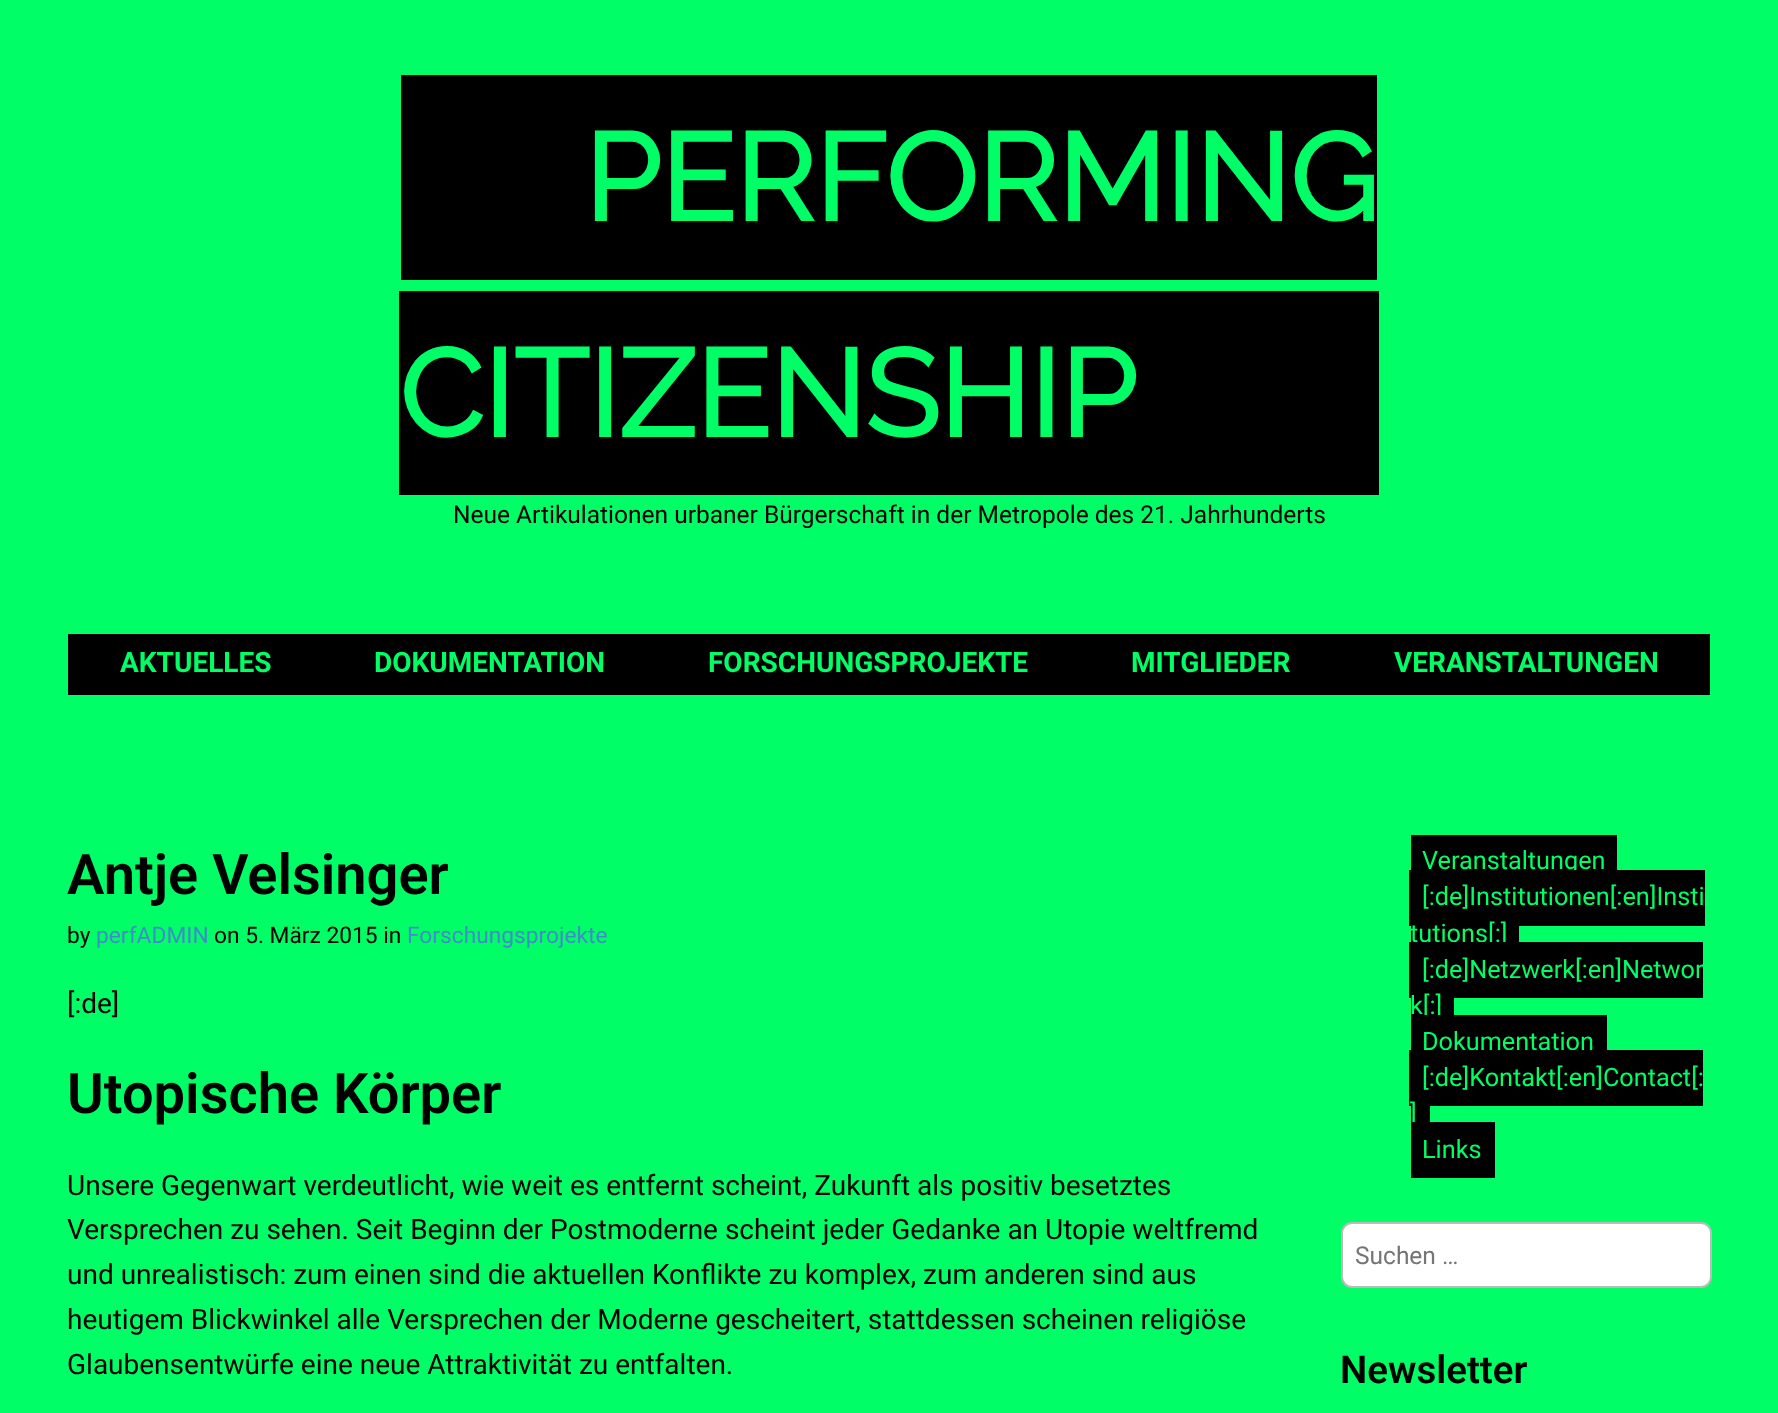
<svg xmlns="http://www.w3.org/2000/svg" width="1778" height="1413">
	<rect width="100%" height="100%" fill="#00FF66" />
	<rect x="401" y="75" width="976" height="205" fill="#000000" />
	<text x="584" y="221" font-family="Raleway" font-size="122.5" font-weight="700" fill="#00FF66">PERFORMING</text>
	<rect x="399" y="291" width="980" height="204" fill="#000000" />
	<text x="399" y="437" font-family="Raleway" font-size="122.5" font-weight="700" fill="#00FF66">CITIZENSHIP</text>
	<text x="453" y="523" font-family="Roboto" font-size="24.5" fill="#000000">Neue Artikulationen urbaner Bürgerschaft in der Metropole des 21. Jahrhunderts</text>
	<rect x="68" y="634" width="1642" height="61" fill="#000000" />
	<g font-family="Roboto" font-size="28" font-weight="700" fill="#00FF66">
		<text x="120" y="672">AKTUELLES</text>
		<text x="374" y="672">DOKUMENTATION</text>
		<text x="708" y="672">FORSCHUNGSPROJEKTE</text>
		<text x="1131" y="672">MITGLIEDER</text>
		<text x="1394" y="672">VERANSTALTUNGEN</text>
	</g>
	<text x="67" y="894" font-family="Roboto" font-size="56" font-weight="600" fill="#000000">Antje Velsinger</text>
	<text x="67" y="943" font-family="Roboto" font-size="22.75" fill="#000000">by</text>
	<text x="96" y="943" font-family="Roboto" font-size="22.75" fill="#428BCA">perfADMIN</text>
	<text x="214" y="943" font-family="Roboto" font-size="22.75" fill="#000000">on 5. März 2015 in</text>
	<text x="407" y="943" font-family="Roboto" font-size="22.75" fill="#428BCA">Forschungsprojekte</text>
	<text x="67" y="1013" font-family="Roboto" font-size="28" fill="#000000">[:de]</text>
	<text x="67" y="1113" font-family="Roboto" font-size="56" font-weight="600" fill="#000000">Utopische Körper</text>
	<g font-family="Roboto" font-size="28" fill="#000000">
		<text x="67" y="1195">Unsere Gegenwart verdeutlicht, wie weit es entfernt scheint, Zukunft als positiv besetztes</text>
		<text x="67" y="1239">Versprechen zu sehen. Seit Beginn der Postmoderne scheint jeder Gedanke an Utopie weltfremd</text>
		<text x="67" y="1284">und unrealistisch: zum einen sind die aktuellen Konflikte zu komplex, zum anderen sind aus</text>
		<text x="67" y="1329">heutigem Blickwinkel alle Versprechen der Moderne gescheitert, stattdessen scheinen religiöse</text>
		<text x="67" y="1374">Glaubensentwürfe eine neue Attraktivität zu entfalten.</text>
	</g>
	<rect x="1411" y="835" width="206" height="35" fill="#000000" />
	<text x="1422" y="869" font-family="Roboto" font-size="25.25" fill="#00FF66">Veranstaltungen</text>
	<rect x="1409" y="870" width="296" height="56" fill="#000000" />
	<text x="1422" y="905" font-family="Roboto" font-size="25.25" fill="#00FF66">[:de]Institutionen[:en]Insti</text>
	<rect x="1411" y="926" width="108" height="16" fill="#000000" />
	<text x="1410" y="942" font-family="Roboto" font-size="25.25" fill="#00FF66">tutions[:]</text>
	<rect x="1409" y="942" width="294" height="56" fill="#000000" />
	<text x="1422" y="978" font-family="Roboto" font-size="25.25" fill="#00FF66">[:de]Netzwerk[:en]Networ</text>
	<rect x="1411" y="998" width="43" height="17" fill="#000000" />
	<text x="1410" y="1014" font-family="Roboto" font-size="25.25" fill="#00FF66">k[:]</text>
	<rect x="1411" y="1015" width="196" height="35" fill="#000000" />
	<text x="1422" y="1050" font-family="Roboto" font-size="25.25" fill="#00FF66">Dokumentation</text>
	<rect x="1409" y="1050" width="294" height="56" fill="#000000" />
	<text x="1422" y="1086" font-family="Roboto" font-size="25.25" fill="#00FF66">[:de]Kontakt[:en]Contact[:</text>
	<rect x="1411" y="1106" width="19" height="16" fill="#000000" />
	<text x="1410" y="1122" font-family="Roboto" font-size="25.25" fill="#00FF66">]</text>
	<rect x="1411" y="1122" width="84" height="56" fill="#000000" />
	<text x="1422" y="1158" font-family="Roboto" font-size="25.25" fill="#00FF66">Links</text>
	<rect x="1342" y="1223" width="369" height="64" rx="10" fill="#FFFFFF" stroke="#BBBBBB" stroke-width="2" />
	<text x="1355" y="1264" font-family="Roboto" font-size="24.5" fill="#757575">Suchen …</text>
	<text x="1340" y="1383" font-family="Roboto" font-size="38.5" font-weight="600" fill="#000000">Newsletter</text>
</svg>
